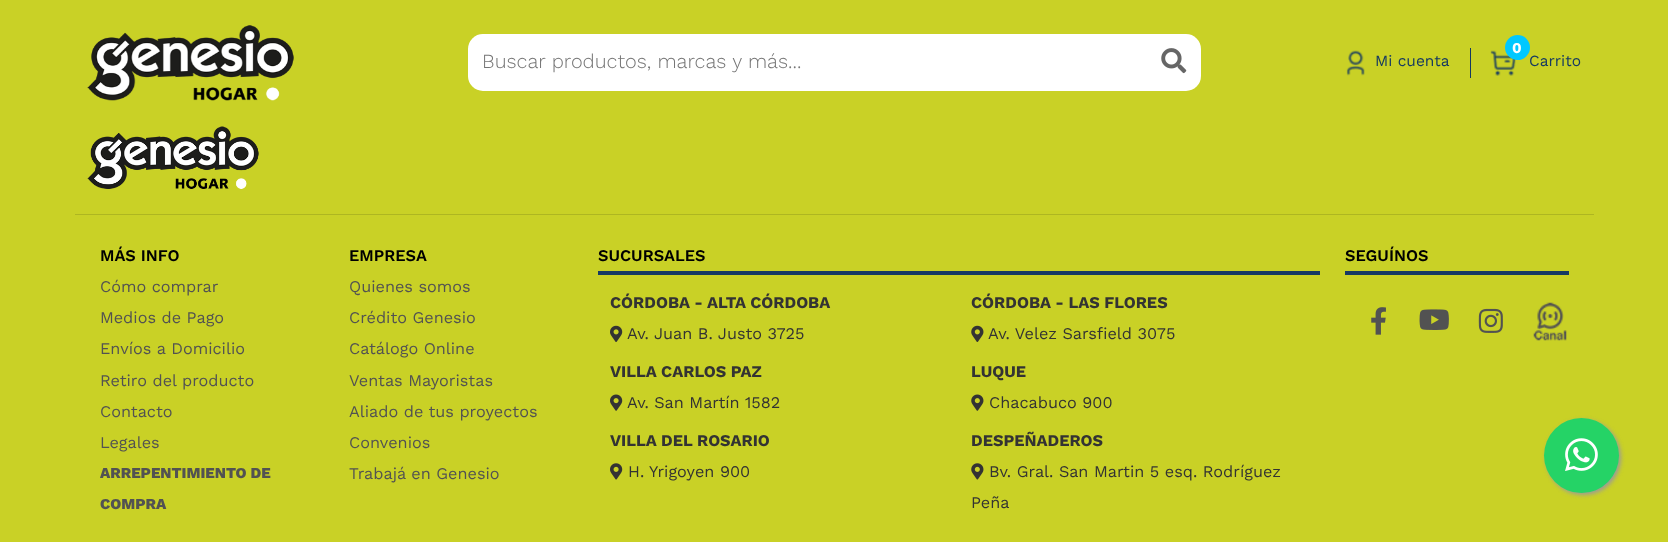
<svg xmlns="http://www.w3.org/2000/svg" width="1668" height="542">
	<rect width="100%" height="100%" fill="#C9D126" />
	<image x="87" y="25" width="207" height="76" href="assets/img1.png" />
	<rect x="468" y="34" width="733" height="57" rx="15" fill="#FFFFFF" />
	<rect x="468" y="34" width="678" height="57" rx="19" fill="#FFFFFF" />
	<text x="482" y="68" font-family="Work Sans" font-size="20" font-weight="300" fill="#757575">Buscar productos, marcas y más...</text>
	<image x="1161" y="48" width="26" height="26" href="assets/img2.png" />
	<rect x="1470" y="48" width="1" height="30" fill="#153962" />
	<image x="1346" y="50" width="19" height="26" href="assets/img3.png" />
	<text x="1375" y="66" font-family="Work Sans" font-size="15.5" fill="#153962">Mi cuenta</text>
	<image x="1490" y="50" width="26" height="26" href="assets/img4.png" />
	<text x="1529" y="66" font-family="Work Sans" font-size="15.5" fill="#153962">Carrito</text>
	<circle cx="1517.5" cy="47.5" r="12.5" fill="#00C8FF" />
	<text x="1512" y="53" font-family="Work Sans" font-size="15" font-weight="700" fill="#FFFFFF">0</text>
	<image x="87" y="126" width="172" height="63" href="assets/img5.png" />
	<rect x="75" y="214" width="1519" height="1" fill="#AEB621" />
	<text x="100" y="261" font-family="Work Sans" font-size="16.25" font-weight="600" fill="#000000">MÁS INFO</text>
	<g font-family="Work Sans" font-size="16.25" fill="#525252">
		<text x="100" y="292">Cómo comprar</text>
		<text x="100" y="323">Medios de Pago</text>
		<text x="100" y="354">Envíos a Domicilio</text>
		<text x="100" y="386">Retiro del producto</text>
		<text x="100" y="417">Contacto</text>
		<text x="100" y="448">Legales</text>
	</g>
	<g font-family="Work Sans" font-size="15" font-weight="800" fill="#525252">
		<text x="100" y="478">ARREPENTIMIENTO DE</text>
		<text x="100" y="509">COMPRA</text>
	</g>
	<text x="349" y="261" font-family="Work Sans" font-size="16.25" font-weight="600" fill="#000000">EMPRESA</text>
	<g font-family="Work Sans" font-size="16.25" fill="#525252">
		<text x="349" y="292">Quienes somos</text>
		<text x="349" y="323">Crédito Genesio</text>
		<text x="349" y="354">Catálogo Online</text>
		<text x="349" y="386">Ventas Mayoristas</text>
		<text x="349" y="417">Aliado de tus proyectos</text>
		<text x="349" y="448">Convenios</text>
		<text x="349" y="479">Trabajá en Genesio</text>
	</g>
	<rect x="598" y="271" width="722" height="4" fill="#163963" />
	<text x="598" y="261" font-family="Work Sans" font-size="16.25" font-weight="600" fill="#000000">SUCURSALES</text>
	<text x="610" y="308" font-family="Work Sans" font-size="16.25" font-weight="700" fill="#333333">CÓRDOBA - ALTA CÓRDOBA</text>
	<image x="610" y="325" width="13" height="17" href="assets/img6.png" />
	<text x="627" y="339" font-family="Work Sans" font-size="16.25" fill="#333333">Av. Juan B. Justo 3725</text>
	<text x="971" y="308" font-family="Work Sans" font-size="16.25" font-weight="700" fill="#333333">CÓRDOBA - LAS FLORES</text>
	<image x="971" y="325" width="13" height="17" href="assets/img7.png" />
	<text x="988" y="339" font-family="Work Sans" font-size="16.25" fill="#333333">Av. Velez Sarsfield 3075</text>
	<text x="610" y="377" font-family="Work Sans" font-size="16.25" font-weight="700" fill="#333333">VILLA CARLOS PAZ</text>
	<image x="610" y="394" width="13" height="17" href="assets/img8.png" />
	<text x="627" y="408" font-family="Work Sans" font-size="16.25" fill="#333333">Av. San Martín 1582</text>
	<text x="971" y="377" font-family="Work Sans" font-size="16.25" font-weight="700" fill="#333333">LUQUE</text>
	<image x="971" y="394" width="13" height="17" href="assets/img9.png" />
	<text x="989" y="408" font-family="Work Sans" font-size="16.25" fill="#333333">Chacabuco 900</text>
	<text x="610" y="446" font-family="Work Sans" font-size="16.25" font-weight="700" fill="#333333">VILLA DEL ROSARIO</text>
	<image x="610" y="463" width="13" height="17" href="assets/img10.png" />
	<text x="628" y="477" font-family="Work Sans" font-size="16.25" fill="#333333">H. Yrigoyen 900</text>
	<text x="971" y="446" font-family="Work Sans" font-size="16.25" font-weight="700" fill="#333333">DESPEÑADEROS</text>
	<image x="971" y="463" width="13" height="17" href="assets/img11.png" />
	<g font-family="Work Sans" font-size="16.25" fill="#333333">
		<text x="989" y="477">Bv. Gral. San Martin 5 esq. Rodríguez</text>
		<text x="971" y="508">Peña</text>
	</g>
	<rect x="1345" y="271" width="224" height="4" fill="#163963" />
	<text x="1345" y="261" font-family="Work Sans" font-size="16.25" font-weight="600" fill="#000000">SEGUÍNOS</text>
	<image x="1371" y="307" width="15" height="28" href="assets/img12.png" />
	<image x="1419" y="309" width="30" height="21" href="assets/img13.png" />
	<image x="1478" y="308" width="25" height="25" href="assets/img14.png" />
	<image x="1533" y="302" width="34" height="39" href="assets/img15.png" />
	<rect x="1546" y="420" width="75" height="75" rx="37.5" fill="#999999" filter="blur(2px)" />
	<circle cx="1581.5" cy="455.5" r="37.5" fill="#25D366" />
	<image x="1565" y="438" width="33" height="33" href="assets/img16.png" />
</svg>
